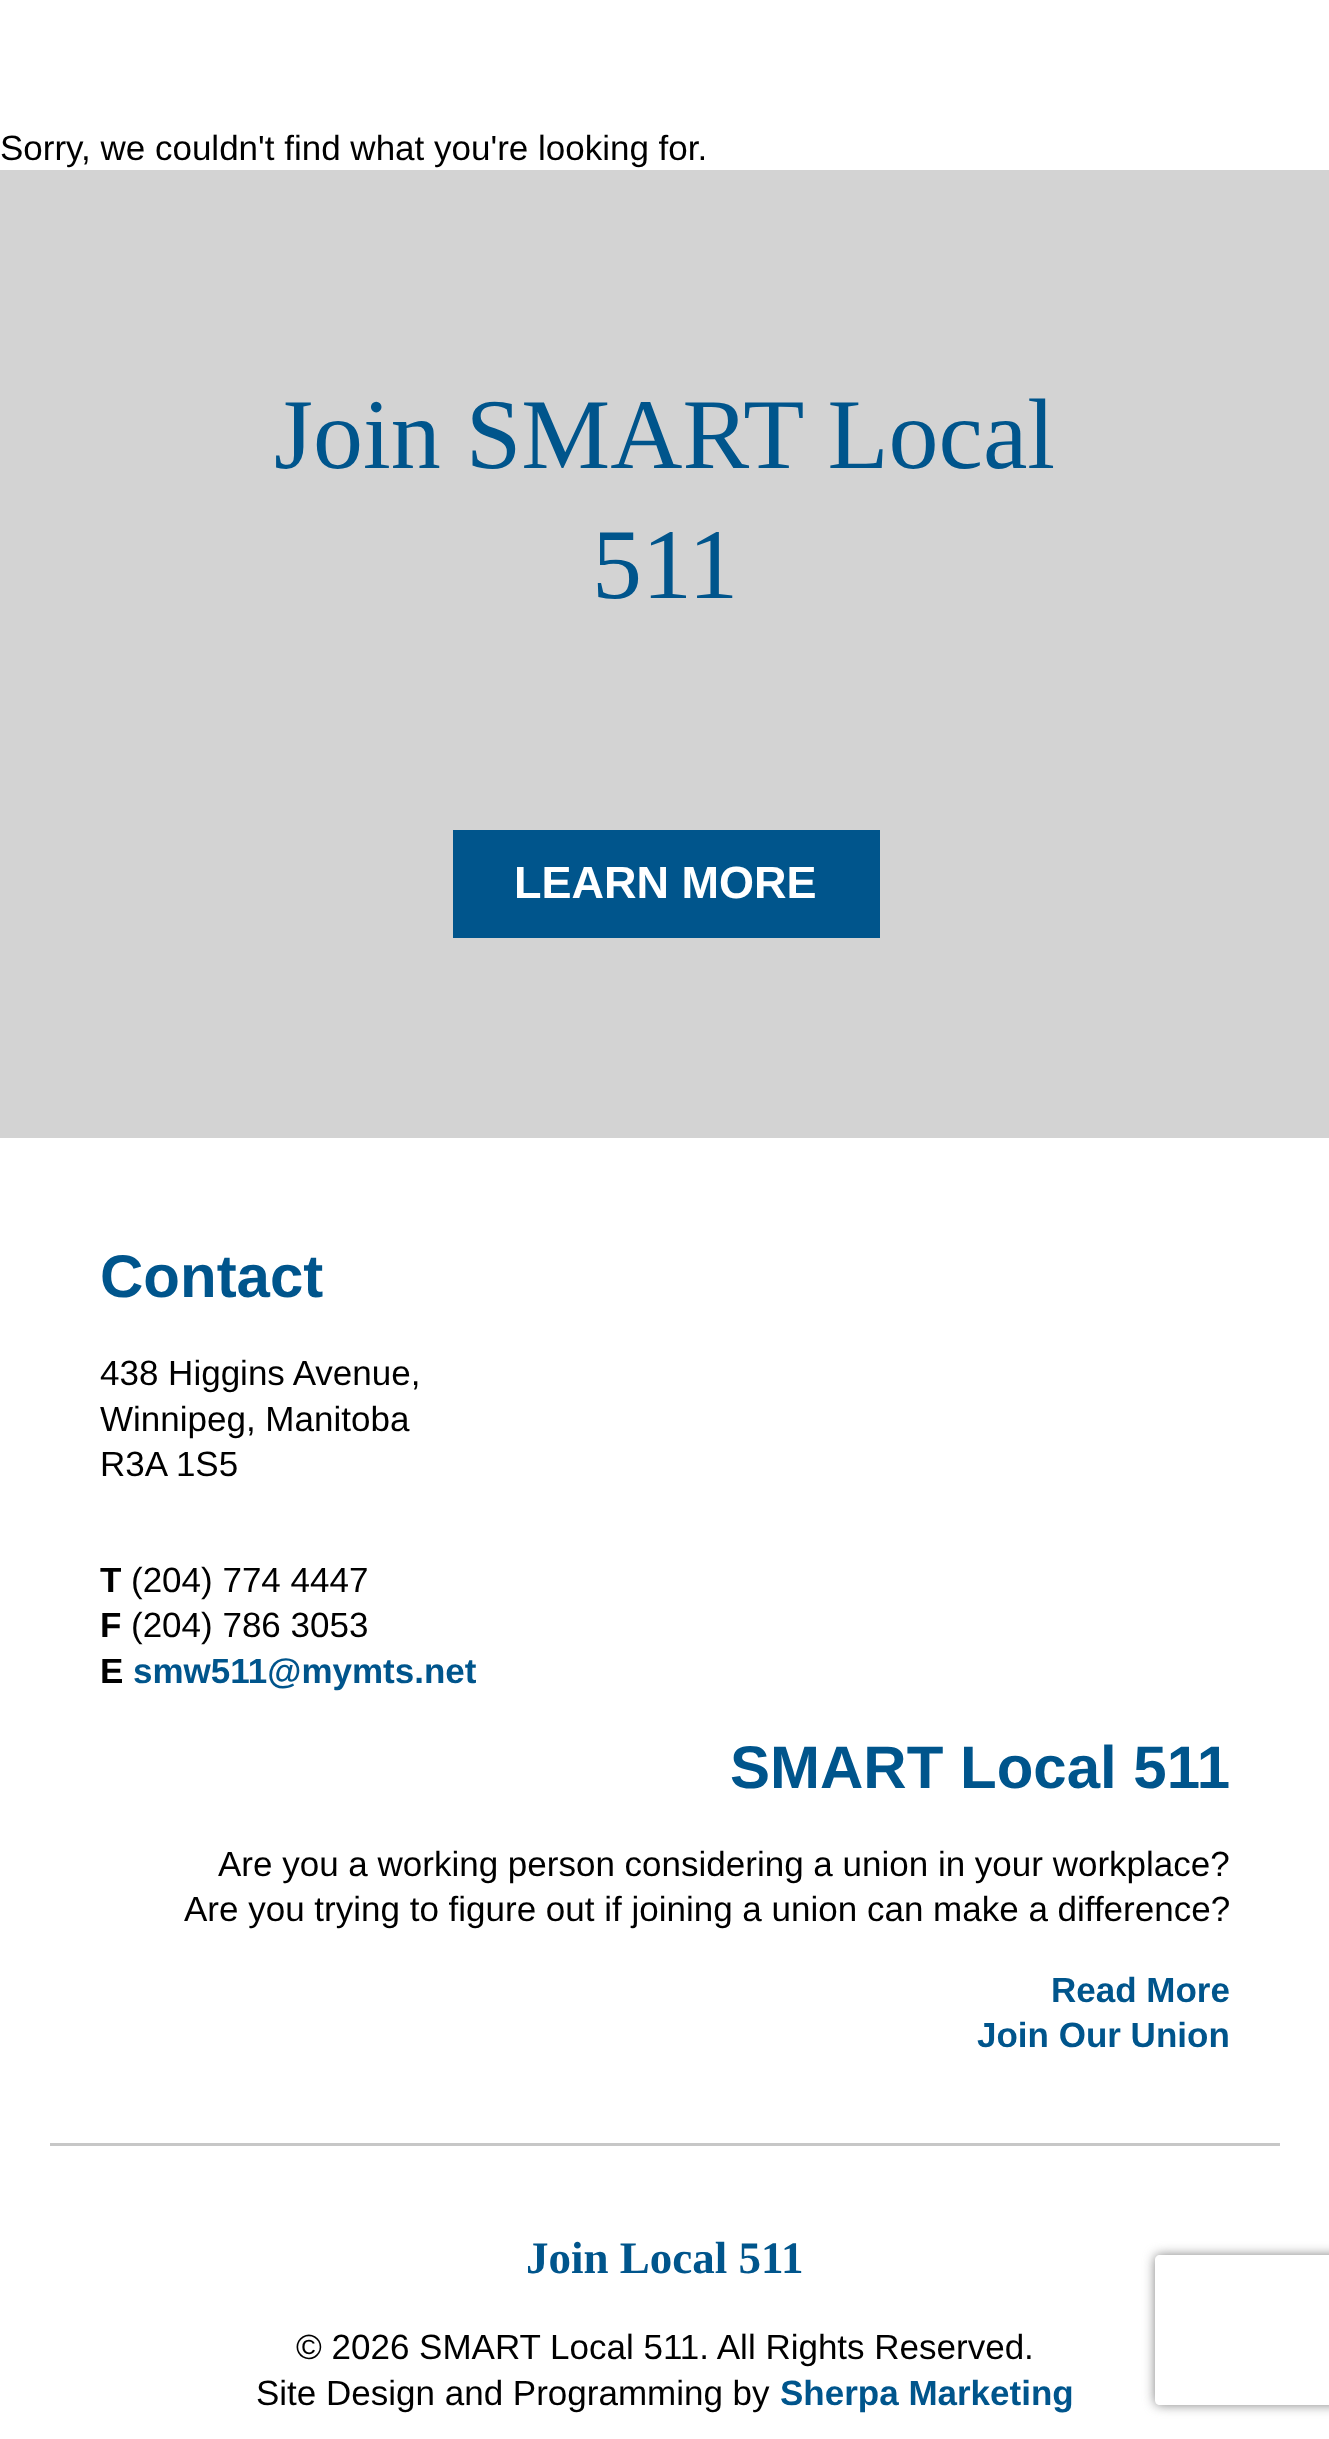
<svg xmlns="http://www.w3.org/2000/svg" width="1329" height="2439">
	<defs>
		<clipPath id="clip1"><path d="M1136 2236H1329V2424H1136ZM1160 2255H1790C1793 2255 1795 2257 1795 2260V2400C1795 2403 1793 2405 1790 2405H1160C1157 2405 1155 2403 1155 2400V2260C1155 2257 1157 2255 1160 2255Z" clip-rule="evenodd" /></clipPath>
	</defs>
	<rect width="100%" height="100%" fill="#FFFFFF" />
	<text x="0" y="160" font-family="Liberation Sans" font-size="35" fill="#000000">Sorry, we couldn't find what you're looking for.</text>
	<rect x="0" y="170" width="1329" height="968" fill="#D3D3D3" />
	<g font-family="Liberation Serif" font-size="100" fill="#00558C">
		<text x="274" y="468">Join SMART Local</text>
		<text x="592" y="598">511</text>
	</g>
	<rect x="453" y="830" width="427" height="108" fill="#00558C" />
	<text x="514" y="898" font-family="Liberation Sans" font-size="45" font-weight="700" fill="#FFFFFF">LEARN MORE</text>
	<text x="100" y="1297" font-family="Liberation Sans" font-size="60" font-weight="700" fill="#00558C">Contact</text>
	<g font-family="Liberation Sans" font-size="35" fill="#000000">
		<text x="100" y="1385">438 Higgins Avenue,</text>
		<text x="100" y="1431">Winnipeg, Manitoba</text>
		<text x="100" y="1476">R3A 1S5</text>
	</g>
	<text x="100" y="1592" font-family="Liberation Sans" font-size="35" font-weight="700" fill="#000000">T</text>
	<text x="131" y="1592" font-family="Liberation Sans" font-size="35" fill="#000000">(204) 774 4447</text>
	<text x="100" y="1637" font-family="Liberation Sans" font-size="35" font-weight="700" fill="#000000">F</text>
	<text x="131" y="1637" font-family="Liberation Sans" font-size="35" fill="#000000">(204) 786 3053</text>
	<text x="100" y="1683" font-family="Liberation Sans" font-size="35" font-weight="700" fill="#000000">E</text>
	<text x="133" y="1683" font-family="Liberation Sans" font-size="35" font-weight="700" fill="#00558C">smw511@mymts.net</text>
	<text x="730" y="1788" font-family="Liberation Sans" font-size="60" font-weight="700" fill="#00558C">SMART Local 511</text>
	<g font-family="Liberation Sans" font-size="35" fill="#000000">
		<text x="218" y="1876">Are you a working person considering a union in your workplace?</text>
		<text x="184" y="1921">Are you trying to figure out if joining a union can make a difference?</text>
	</g>
	<g font-family="Liberation Sans" font-size="35" font-weight="700" fill="#00558C">
		<text x="1051" y="2002">Read More</text>
		<text x="977" y="2047">Join Our Union</text>
	</g>
	<rect x="50" y="2143" width="1230" height="3" fill="#C7C7C7" />
	<text x="526" y="2273" font-family="Liberation Serif" font-size="45" font-weight="700" fill="#00558C">Join Local 511</text>
	<g font-family="Liberation Sans" font-size="35" fill="#000000">
		<text x="296" y="2359">© 2026 SMART Local 511. All Rights Reserved.</text>
		<text x="256" y="2405">Site Design and Programming by</text>
	</g>
	<text x="780" y="2405" font-family="Liberation Sans" font-size="35" font-weight="700" fill="#00558C">Sherpa Marketing</text>
	<g clip-path="url(#clip1)">
		<rect x="1155" y="2255" width="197" height="150" rx="5" fill="#808080" filter="blur(6px)" />
	</g>
</svg>
